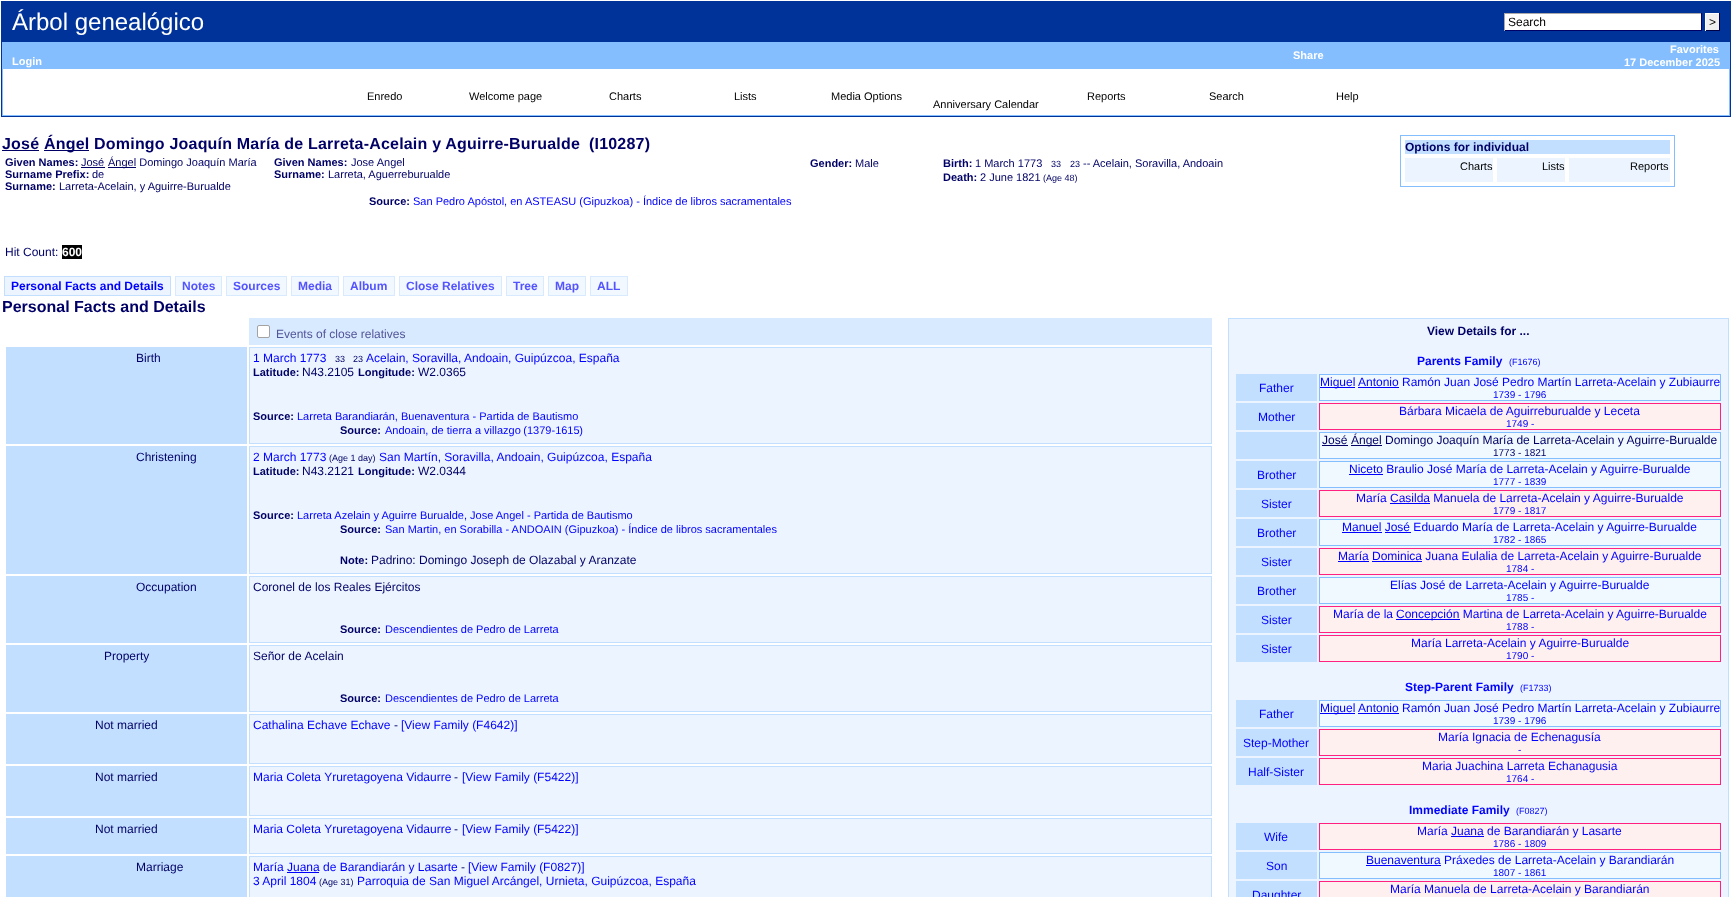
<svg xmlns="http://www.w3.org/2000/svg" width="1732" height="897">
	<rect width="100%" height="100%" fill="#FFFFFF" />
	<rect x="1" y="1" width="1730" height="116" fill="#003399" />
	<text x="12" y="30" font-family="Liberation Sans" font-size="24" fill="#FFFFFF">Árbol genealógico</text>
	<rect x="1505" y="14" width="196" height="16" fill="#FFFFFF" />
	<rect x="1504" y="13" width="198" height="1" fill="#AAAAAA" />
	<rect x="1701" y="13" width="1" height="18" fill="#000066" />
	<rect x="1504" y="30" width="198" height="1" fill="#000066" />
	<rect x="1504" y="13" width="1" height="18" fill="#AAAAAA" />
	<text x="1508" y="26" font-family="Liberation Sans" font-size="12" fill="#000000">Search</text>
	<rect x="1706" y="14" width="13" height="16" fill="#EFEFEF" />
	<rect x="1705" y="13" width="15" height="1" fill="#FFFFFF" />
	<rect x="1719" y="13" width="1" height="18" fill="#000044" />
	<rect x="1705" y="30" width="15" height="1" fill="#000044" />
	<rect x="1705" y="13" width="1" height="18" fill="#FFFFFF" />
	<text x="1709" y="26" font-family="Liberation Sans" font-size="12" fill="#000000">&gt;</text>
	<rect x="2" y="42" width="1728" height="26" fill="#84BEFF" />
	<g font-family="Liberation Sans" font-size="11" font-weight="700" fill="#FFFFFF">
		<text x="1293" y="59">Share</text>
		<text x="1670" y="53">Favorites</text>
		<text x="1624" y="66">17 December 2025</text>
		<text x="12" y="65">Login</text>
	</g>
	<rect x="2.5" y="68.5" width="1727" height="47" fill="#FFFFFF" stroke="#84BEFF" />
	<g font-family="Liberation Sans" font-size="11" fill="#000000">
		<text x="367" y="100">Enredo</text>
		<text x="469" y="100">Welcome page</text>
		<text x="609" y="100">Charts</text>
		<text x="734" y="100">Lists</text>
		<text x="831" y="100">Media Options</text>
		<text x="1087" y="100">Reports</text>
		<text x="1209" y="100">Search</text>
		<text x="1336" y="100">Help</text>
		<text x="933" y="108">Anniversary Calendar</text>
	</g>
	<text x="2" y="149" font-family="Liberation Sans" font-size="16" font-weight="700" letter-spacing="0.2" fill="#000066">José</text>
	<rect x="2" y="150" width="37" height="1" fill="#000066" />
	<rect x="44" y="150" width="45" height="1" fill="#000066" />
	<g font-family="Liberation Sans" font-size="16" font-weight="700" letter-spacing="0.2" fill="#000066">
		<text x="44" y="149">Ángel Domingo Joaquín María de Larreta-Acelain y Aguirre-Burualde</text>
		<text x="589" y="149">(I10287)</text>
	</g>
	<text x="5" y="166" font-family="Liberation Sans" font-size="11" font-weight="700" fill="#000066">Given Names:</text>
	<text x="81" y="166" font-family="Liberation Sans" font-size="11" fill="#000066">José</text>
	<rect x="81" y="167" width="24" height="1" fill="#000066" />
	<rect x="108" y="167" width="28" height="1" fill="#000066" />
	<text x="108" y="166" font-family="Liberation Sans" font-size="11" fill="#000066">Ángel Domingo Joaquín María</text>
	<text x="5" y="178" font-family="Liberation Sans" font-size="11" font-weight="700" fill="#000066">Surname Prefix:</text>
	<text x="92" y="178" font-family="Liberation Sans" font-size="11" fill="#000066">de</text>
	<text x="5" y="190" font-family="Liberation Sans" font-size="11" font-weight="700" fill="#000066">Surname:</text>
	<text x="59" y="190" font-family="Liberation Sans" font-size="11" fill="#000066">Larreta-Acelain, y Aguirre-Burualde</text>
	<text x="274" y="166" font-family="Liberation Sans" font-size="11" font-weight="700" fill="#000066">Given Names:</text>
	<text x="351" y="166" font-family="Liberation Sans" font-size="11" fill="#000066">Jose Angel</text>
	<text x="274" y="178" font-family="Liberation Sans" font-size="11" font-weight="700" fill="#000066">Surname:</text>
	<text x="328" y="178" font-family="Liberation Sans" font-size="11" fill="#000066">Larreta, Aguerreburualde</text>
	<text x="369" y="205" font-family="Liberation Sans" font-size="11" font-weight="700" fill="#000066">Source:</text>
	<text x="413" y="205" font-family="Liberation Sans" font-size="11" fill="#0000FF">San Pedro Apóstol, en ASTEASU (Gipuzkoa) - Índice de libros sacramentales</text>
	<text x="810" y="167" font-family="Liberation Sans" font-size="11" font-weight="700" fill="#000066">Gender:</text>
	<text x="855" y="167" font-family="Liberation Sans" font-size="11" fill="#000066">Male</text>
	<text x="943" y="167" font-family="Liberation Sans" font-size="11" font-weight="700" fill="#000066">Birth:</text>
	<text x="975" y="167" font-family="Liberation Sans" font-size="11" fill="#000066">1 March 1773</text>
	<g font-family="Liberation Sans" font-size="9" fill="#000066">
		<text x="1051" y="167">33</text>
		<text x="1070" y="167">23</text>
	</g>
	<text x="1083" y="167" font-family="Liberation Sans" font-size="11" fill="#000066">-- Acelain, Soravilla, Andoain</text>
	<text x="943" y="181" font-family="Liberation Sans" font-size="11" font-weight="700" fill="#000066">Death:</text>
	<text x="980" y="181" font-family="Liberation Sans" font-size="11" fill="#000066">2 June 1821</text>
	<text x="1043" y="181" font-family="Liberation Sans" font-size="9" fill="#000066">(Age 48)</text>
	<text x="5" y="256" font-family="Liberation Sans" font-size="12" fill="#000066">Hit Count:</text>
	<rect x="62" y="245" width="20" height="14" fill="#000000" />
	<text x="62" y="256" font-family="Liberation Sans" font-size="12" font-weight="700" fill="#FFFFFF">600</text>
	<rect x="1400.5" y="135.5" width="274" height="51" fill="none" stroke="#84BEFF" />
	<rect x="1405" y="140" width="265" height="14" fill="#C3DFFF" />
	<text x="1405" y="151" font-family="Liberation Sans" font-size="12" font-weight="700" fill="#000066">Options for individual</text>
	<rect x="1405" y="158" width="88" height="24" fill="#ECF5FF" />
	<text x="1460" y="170" font-family="Liberation Sans" font-size="11" fill="#000000">Charts</text>
	<rect x="1497" y="158" width="68" height="24" fill="#ECF5FF" />
	<text x="1542" y="170" font-family="Liberation Sans" font-size="11" fill="#000000">Lists</text>
	<rect x="1569" y="158" width="101" height="24" fill="#ECF5FF" />
	<text x="1630" y="170" font-family="Liberation Sans" font-size="11" fill="#000000">Reports</text>
	<rect x="4.5" y="276.5" width="166" height="19" fill="#ECF5FF" stroke="#C3DFFF" />
	<text x="11" y="290" font-family="Liberation Sans" font-size="12" font-weight="700" fill="#0000FF">Personal Facts and Details</text>
	<rect x="175.5" y="276.5" width="46" height="19" fill="#F2F8FF" stroke="#D7EAFF" />
	<text x="182" y="290" font-family="Liberation Sans" font-size="12" font-weight="700" fill="#5454FF">Notes</text>
	<rect x="226.5" y="276.5" width="60" height="19" fill="#F2F8FF" stroke="#D7EAFF" />
	<text x="233" y="290" font-family="Liberation Sans" font-size="12" font-weight="700" fill="#5454FF">Sources</text>
	<rect x="291.5" y="276.5" width="47" height="19" fill="#F2F8FF" stroke="#D7EAFF" />
	<text x="298" y="290" font-family="Liberation Sans" font-size="12" font-weight="700" fill="#5454FF">Media</text>
	<rect x="343.5" y="276.5" width="51" height="19" fill="#F2F8FF" stroke="#D7EAFF" />
	<text x="350" y="290" font-family="Liberation Sans" font-size="12" font-weight="700" fill="#5454FF">Album</text>
	<rect x="399.5" y="276.5" width="102" height="19" fill="#F2F8FF" stroke="#D7EAFF" />
	<text x="406" y="290" font-family="Liberation Sans" font-size="12" font-weight="700" fill="#5454FF">Close Relatives</text>
	<rect x="506.5" y="276.5" width="37" height="19" fill="#F2F8FF" stroke="#D7EAFF" />
	<text x="513" y="290" font-family="Liberation Sans" font-size="12" font-weight="700" fill="#5454FF">Tree</text>
	<rect x="548.5" y="276.5" width="37" height="19" fill="#F2F8FF" stroke="#D7EAFF" />
	<text x="555" y="290" font-family="Liberation Sans" font-size="12" font-weight="700" fill="#5454FF">Map</text>
	<rect x="590.5" y="276.5" width="37" height="19" fill="#F2F8FF" stroke="#D7EAFF" />
	<text x="597" y="290" font-family="Liberation Sans" font-size="12" font-weight="700" fill="#5454FF">ALL</text>
	<text x="2" y="312" font-family="Liberation Sans" font-size="16" font-weight="700" fill="#000066">Personal Facts and Details</text>
	<rect x="249" y="318" width="963" height="27" fill="#D7EAFF" />
	<rect x="257.5" y="325.5" width="12" height="12" rx="1.5" fill="#FFFFFF" stroke="#A3A3A3" />
	<text x="276" y="338" font-family="Liberation Sans" font-size="12" fill="#545498">Events of close relatives</text>
	<rect x="6" y="347" width="241" height="97" fill="#C3DFFF" />
	<text x="136" y="362" font-family="Liberation Sans" font-size="12" fill="#000066">Birth</text>
	<rect x="249.5" y="347.5" width="962" height="96" fill="#ECF5FF" stroke="#C3DFFF" />
	<text x="253" y="362" font-family="Liberation Sans" font-size="12" fill="#0000FF">1 March 1773</text>
	<g font-family="Liberation Sans" font-size="9" fill="#000066">
		<text x="335" y="362">33</text>
		<text x="353" y="362">23</text>
	</g>
	<text x="366" y="362" font-family="Liberation Sans" font-size="12" fill="#0000FF">Acelain, Soravilla, Andoain, Guipúzcoa, España</text>
	<text x="253" y="376" font-family="Liberation Sans" font-size="11" font-weight="700" fill="#000066">Latitude:</text>
	<text x="302" y="376" font-family="Liberation Sans" font-size="12" fill="#000066">N43.2105</text>
	<text x="358" y="376" font-family="Liberation Sans" font-size="11" font-weight="700" fill="#000066">Longitude:</text>
	<text x="418" y="376" font-family="Liberation Sans" font-size="12" fill="#000066">W2.0365</text>
	<text x="253" y="420" font-family="Liberation Sans" font-size="11" font-weight="700" fill="#000066">Source:</text>
	<text x="297" y="420" font-family="Liberation Sans" font-size="11" fill="#0000FF">Larreta Barandiarán, Buenaventura - Partida de Bautismo</text>
	<text x="340" y="434" font-family="Liberation Sans" font-size="11" font-weight="700" fill="#000066">Source:</text>
	<text x="385" y="434" font-family="Liberation Sans" font-size="11" fill="#0000FF">Andoain, de tierra a villazgo</text>
	<text x="527" y="434" font-family="Liberation Sans" font-size="11" direction="rtl" fill="#0000FF">)</text>
	<text x="527" y="434" font-family="Liberation Sans" font-size="11" fill="#0000FF">1379-1615</text>
	<text x="583" y="434" font-family="Liberation Sans" font-size="11" direction="rtl" fill="#0000FF">(</text>
	<rect x="6" y="446" width="241" height="128" fill="#C3DFFF" />
	<text x="136" y="461" font-family="Liberation Sans" font-size="12" fill="#000066">Christening</text>
	<rect x="249.5" y="446.5" width="962" height="127" fill="#ECF5FF" stroke="#C3DFFF" />
	<text x="253" y="461" font-family="Liberation Sans" font-size="12" fill="#0000FF">2 March 1773</text>
	<text x="329" y="461" font-family="Liberation Sans" font-size="9" fill="#000066">(Age 1 day)</text>
	<text x="379" y="461" font-family="Liberation Sans" font-size="12" fill="#0000FF">San Martín, Soravilla, Andoain, Guipúzcoa, España</text>
	<text x="253" y="475" font-family="Liberation Sans" font-size="11" font-weight="700" fill="#000066">Latitude:</text>
	<text x="302" y="475" font-family="Liberation Sans" font-size="12" fill="#000066">N43.2121</text>
	<text x="358" y="475" font-family="Liberation Sans" font-size="11" font-weight="700" fill="#000066">Longitude:</text>
	<text x="418" y="475" font-family="Liberation Sans" font-size="12" fill="#000066">W2.0344</text>
	<text x="253" y="519" font-family="Liberation Sans" font-size="11" font-weight="700" fill="#000066">Source:</text>
	<text x="297" y="519" font-family="Liberation Sans" font-size="11" fill="#0000FF">Larreta Azelain y Aguirre Burualde, Jose Angel - Partida de Bautismo</text>
	<text x="340" y="533" font-family="Liberation Sans" font-size="11" font-weight="700" fill="#000066">Source:</text>
	<text x="385" y="533" font-family="Liberation Sans" font-size="11" fill="#0000FF">San Martin, en Sorabilla - ANDOAIN (Gipuzkoa) - Índice de libros sacramentales</text>
	<text x="340" y="564" font-family="Liberation Sans" font-size="11" font-weight="700" fill="#000066">Note:</text>
	<text x="371" y="564" font-family="Liberation Sans" font-size="12" fill="#000066">Padrino: Domingo Joseph de Olazabal y Aranzate</text>
	<rect x="6" y="576" width="241" height="67" fill="#C3DFFF" />
	<text x="136" y="591" font-family="Liberation Sans" font-size="12" fill="#000066">Occupation</text>
	<rect x="249.5" y="576.5" width="962" height="66" fill="#ECF5FF" stroke="#C3DFFF" />
	<text x="253" y="591" font-family="Liberation Sans" font-size="12" fill="#000066">Coronel de los Reales Ejércitos</text>
	<text x="340" y="633" font-family="Liberation Sans" font-size="11" font-weight="700" fill="#000066">Source:</text>
	<text x="385" y="633" font-family="Liberation Sans" font-size="11" fill="#0000FF">Descendientes de Pedro de Larreta</text>
	<rect x="6" y="645" width="241" height="67" fill="#C3DFFF" />
	<text x="104" y="660" font-family="Liberation Sans" font-size="12" fill="#000066">Property</text>
	<rect x="249.5" y="645.5" width="962" height="66" fill="#ECF5FF" stroke="#C3DFFF" />
	<text x="253" y="660" font-family="Liberation Sans" font-size="12" fill="#000066">Señor de Acelain</text>
	<text x="340" y="702" font-family="Liberation Sans" font-size="11" font-weight="700" fill="#000066">Source:</text>
	<text x="385" y="702" font-family="Liberation Sans" font-size="11" fill="#0000FF">Descendientes de Pedro de Larreta</text>
	<rect x="6" y="714" width="241" height="50" fill="#C3DFFF" />
	<text x="95" y="729" font-family="Liberation Sans" font-size="12" fill="#000066">Not married</text>
	<rect x="249.5" y="714.5" width="962" height="49" fill="#ECF5FF" stroke="#C3DFFF" />
	<text x="253" y="729" font-family="Liberation Sans" font-size="12" fill="#0000FF">Cathalina Echave Echave</text>
	<text x="394" y="729" font-family="Liberation Sans" font-size="12" fill="#000066">-</text>
	<text x="401" y="729" font-family="Liberation Sans" font-size="12" fill="#0000FF">[View Family (F4642)]</text>
	<rect x="6" y="766" width="241" height="50" fill="#C3DFFF" />
	<text x="95" y="781" font-family="Liberation Sans" font-size="12" fill="#000066">Not married</text>
	<rect x="249.5" y="766.5" width="962" height="49" fill="#ECF5FF" stroke="#C3DFFF" />
	<text x="253" y="781" font-family="Liberation Sans" font-size="12" fill="#0000FF">Maria Coleta Yruretagoyena Vidaurre</text>
	<text x="454" y="781" font-family="Liberation Sans" font-size="12" fill="#000066">-</text>
	<text x="462" y="781" font-family="Liberation Sans" font-size="12" fill="#0000FF">[View Family (F5422)]</text>
	<rect x="6" y="818" width="241" height="36" fill="#C3DFFF" />
	<text x="95" y="833" font-family="Liberation Sans" font-size="12" fill="#000066">Not married</text>
	<rect x="249.5" y="818.5" width="962" height="35" fill="#ECF5FF" stroke="#C3DFFF" />
	<text x="253" y="833" font-family="Liberation Sans" font-size="12" fill="#0000FF">Maria Coleta Yruretagoyena Vidaurre</text>
	<text x="454" y="833" font-family="Liberation Sans" font-size="12" fill="#000066">-</text>
	<text x="462" y="833" font-family="Liberation Sans" font-size="12" fill="#0000FF">[View Family (F5422)]</text>
	<rect x="6" y="856" width="241" height="41" fill="#C3DFFF" />
	<text x="136" y="871" font-family="Liberation Sans" font-size="12" fill="#000066">Marriage</text>
	<rect x="249.5" y="856.5" width="962" height="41" fill="#ECF5FF" stroke="#C3DFFF" />
	<text x="253" y="871" font-family="Liberation Sans" font-size="12" fill="#0000FF">María Juana de Barandiarán y Lasarte</text>
	<rect x="287" y="872" width="32" height="1" fill="#0000FF" />
	<text x="461" y="871" font-family="Liberation Sans" font-size="12" fill="#000066">-</text>
	<g font-family="Liberation Sans" font-size="12" fill="#0000FF">
		<text x="468" y="871">[View Family (F0827)]</text>
		<text x="253" y="885">3 April 1804</text>
	</g>
	<text x="319" y="885" font-family="Liberation Sans" font-size="9" fill="#000066">(Age 31)</text>
	<text x="357" y="885" font-family="Liberation Sans" font-size="12" fill="#0000FF">Parroquia de San Miguel Arcángel, Urnieta, Guipúzcoa, España</text>
	<rect x="1228.5" y="318.5" width="500" height="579" fill="#ECF5FF" stroke="#C3DFFF" />
	<text x="1427" y="335" font-family="Liberation Sans" font-size="12" font-weight="700" fill="#000066">View Details for ...</text>
	<text x="1417" y="365" font-family="Liberation Sans" font-size="12" font-weight="700" fill="#0000FF">Parents Family</text>
	<text x="1509" y="365" font-family="Liberation Sans" font-size="9" fill="#0000FF">(F1676)</text>
	<rect x="1236" y="374" width="81" height="27" fill="#C3DFFF" />
	<text x="1259" y="392" font-family="Liberation Sans" font-size="12" fill="#0000FF">Father</text>
	<rect x="1319.5" y="374.5" width="401" height="26" fill="#F0F9FF" stroke="#84BEFF" />
	<rect x="1320" y="387" width="35" height="1" fill="#0000FF" />
	<text x="1320" y="386" font-family="Liberation Sans" font-size="12" fill="#0000FF">Miguel</text>
	<rect x="1358" y="387" width="41" height="1" fill="#0000FF" />
	<text x="1358" y="386" font-family="Liberation Sans" font-size="12" fill="#0000FF">Antonio Ramón Juan José Pedro Martín Larreta-Acelain y Zubiaurre</text>
	<text x="1493" y="398" font-family="Liberation Sans" font-size="10" fill="#0000FF">1739 - 1796</text>
	<rect x="1236" y="403" width="81" height="27" fill="#C3DFFF" />
	<text x="1258" y="421" font-family="Liberation Sans" font-size="12" fill="#0000FF">Mother</text>
	<rect x="1319.5" y="403.5" width="401" height="26" fill="#FFF0F0" stroke="#FF2080" />
	<text x="1399" y="415" font-family="Liberation Sans" font-size="12" fill="#0000FF">Bárbara Micaela de Aguirreburualde y Leceta</text>
	<text x="1506" y="427" font-family="Liberation Sans" font-size="10" fill="#0000FF">1749 -</text>
	<rect x="1236" y="432" width="81" height="27" fill="#C3DFFF" />
	<rect x="1319.5" y="432.5" width="401" height="26" fill="#F0F9FF" stroke="#84BEFF" />
	<text x="1322" y="444" font-family="Liberation Sans" font-size="12" fill="#000066">José</text>
	<rect x="1322" y="445" width="26" height="1" fill="#000066" />
	<rect x="1351" y="445" width="31" height="1" fill="#000066" />
	<text x="1351" y="444" font-family="Liberation Sans" font-size="12" fill="#000066">Ángel Domingo Joaquín María de Larreta-Acelain y Aguirre-Burualde</text>
	<text x="1493" y="456" font-family="Liberation Sans" font-size="10" fill="#000066">1773 - 1821</text>
	<rect x="1236" y="461" width="81" height="27" fill="#C3DFFF" />
	<text x="1257" y="479" font-family="Liberation Sans" font-size="12" fill="#0000FF">Brother</text>
	<rect x="1319.5" y="461.5" width="401" height="26" fill="#F0F9FF" stroke="#84BEFF" />
	<rect x="1349" y="474" width="34" height="1" fill="#0000FF" />
	<text x="1349" y="473" font-family="Liberation Sans" font-size="12" fill="#0000FF">Niceto Braulio José María de Larreta-Acelain y Aguirre-Burualde</text>
	<text x="1493" y="485" font-family="Liberation Sans" font-size="10" fill="#0000FF">1777 - 1839</text>
	<rect x="1236" y="490" width="81" height="27" fill="#C3DFFF" />
	<text x="1261" y="508" font-family="Liberation Sans" font-size="12" fill="#0000FF">Sister</text>
	<rect x="1319.5" y="490.5" width="401" height="26" fill="#FFF0F0" stroke="#FF2080" />
	<text x="1356" y="502" font-family="Liberation Sans" font-size="12" fill="#0000FF">María Casilda Manuela de Larreta-Acelain y Aguirre-Burualde</text>
	<rect x="1390" y="503" width="40" height="1" fill="#0000FF" />
	<text x="1493" y="514" font-family="Liberation Sans" font-size="10" fill="#0000FF">1779 - 1817</text>
	<rect x="1236" y="519" width="81" height="27" fill="#C3DFFF" />
	<text x="1257" y="537" font-family="Liberation Sans" font-size="12" fill="#0000FF">Brother</text>
	<rect x="1319.5" y="519.5" width="401" height="26" fill="#F0F9FF" stroke="#84BEFF" />
	<rect x="1342" y="532" width="40" height="1" fill="#0000FF" />
	<text x="1342" y="531" font-family="Liberation Sans" font-size="12" fill="#0000FF">Manuel José Eduardo María de Larreta-Acelain y Aguirre-Burualde</text>
	<rect x="1385" y="532" width="26" height="1" fill="#0000FF" />
	<text x="1493" y="543" font-family="Liberation Sans" font-size="10" fill="#0000FF">1782 - 1865</text>
	<rect x="1236" y="548" width="81" height="27" fill="#C3DFFF" />
	<text x="1261" y="566" font-family="Liberation Sans" font-size="12" fill="#0000FF">Sister</text>
	<rect x="1319.5" y="548.5" width="401" height="26" fill="#FFF0F0" stroke="#FF2080" />
	<rect x="1338" y="561" width="31" height="1" fill="#0000FF" />
	<text x="1338" y="560" font-family="Liberation Sans" font-size="12" fill="#0000FF">María Dominica Juana Eulalia de Larreta-Acelain y Aguirre-Burualde</text>
	<rect x="1372" y="561" width="50" height="1" fill="#0000FF" />
	<text x="1506" y="572" font-family="Liberation Sans" font-size="10" fill="#0000FF">1784 -</text>
	<rect x="1236" y="577" width="81" height="27" fill="#C3DFFF" />
	<text x="1257" y="595" font-family="Liberation Sans" font-size="12" fill="#0000FF">Brother</text>
	<rect x="1319.5" y="577.5" width="401" height="26" fill="#F0F9FF" stroke="#84BEFF" />
	<text x="1390" y="589" font-family="Liberation Sans" font-size="12" fill="#0000FF">Elías José de Larreta-Acelain y Aguirre-Burualde</text>
	<text x="1506" y="601" font-family="Liberation Sans" font-size="10" fill="#0000FF">1785 -</text>
	<rect x="1236" y="606" width="81" height="27" fill="#C3DFFF" />
	<text x="1261" y="624" font-family="Liberation Sans" font-size="12" fill="#0000FF">Sister</text>
	<rect x="1319.5" y="606.5" width="401" height="26" fill="#FFF0F0" stroke="#FF2080" />
	<text x="1333" y="618" font-family="Liberation Sans" font-size="12" fill="#0000FF">María de la</text>
	<rect x="1396" y="619" width="64" height="1" fill="#0000FF" />
	<text x="1396" y="618" font-family="Liberation Sans" font-size="12" fill="#0000FF">Concepción Martina de Larreta-Acelain y Aguirre-Burualde</text>
	<text x="1506" y="630" font-family="Liberation Sans" font-size="10" fill="#0000FF">1788 -</text>
	<rect x="1236" y="635" width="81" height="27" fill="#C3DFFF" />
	<text x="1261" y="653" font-family="Liberation Sans" font-size="12" fill="#0000FF">Sister</text>
	<rect x="1319.5" y="635.5" width="401" height="26" fill="#FFF0F0" stroke="#FF2080" />
	<text x="1411" y="647" font-family="Liberation Sans" font-size="12" fill="#0000FF">María Larreta-Acelain y Aguirre-Burualde</text>
	<text x="1506" y="659" font-family="Liberation Sans" font-size="10" fill="#0000FF">1790 -</text>
	<text x="1405" y="691" font-family="Liberation Sans" font-size="12" font-weight="700" fill="#0000FF">Step-Parent Family</text>
	<text x="1520" y="691" font-family="Liberation Sans" font-size="9" fill="#0000FF">(F1733)</text>
	<rect x="1236" y="700" width="81" height="27" fill="#C3DFFF" />
	<text x="1259" y="718" font-family="Liberation Sans" font-size="12" fill="#0000FF">Father</text>
	<rect x="1319.5" y="700.5" width="401" height="26" fill="#F0F9FF" stroke="#84BEFF" />
	<rect x="1320" y="713" width="35" height="1" fill="#0000FF" />
	<text x="1320" y="712" font-family="Liberation Sans" font-size="12" fill="#0000FF">Miguel</text>
	<rect x="1358" y="713" width="41" height="1" fill="#0000FF" />
	<text x="1358" y="712" font-family="Liberation Sans" font-size="12" fill="#0000FF">Antonio Ramón Juan José Pedro Martín Larreta-Acelain y Zubiaurre</text>
	<text x="1493" y="724" font-family="Liberation Sans" font-size="10" fill="#0000FF">1739 - 1796</text>
	<rect x="1236" y="729" width="81" height="27" fill="#C3DFFF" />
	<text x="1243" y="747" font-family="Liberation Sans" font-size="12" fill="#0000FF">Step-Mother</text>
	<rect x="1319.5" y="729.5" width="401" height="26" fill="#FFF0F0" stroke="#FF2080" />
	<text x="1438" y="741" font-family="Liberation Sans" font-size="12" fill="#0000FF">María Ignacia de Echenagusía</text>
	<text x="1518" y="753" font-family="Liberation Sans" font-size="10" fill="#0000FF">-</text>
	<rect x="1236" y="758" width="81" height="27" fill="#C3DFFF" />
	<text x="1248" y="776" font-family="Liberation Sans" font-size="12" fill="#0000FF">Half-Sister</text>
	<rect x="1319.5" y="758.5" width="401" height="26" fill="#FFF0F0" stroke="#FF2080" />
	<text x="1422" y="770" font-family="Liberation Sans" font-size="12" fill="#0000FF">Maria Juachina Larreta Echanagusia</text>
	<text x="1506" y="782" font-family="Liberation Sans" font-size="10" fill="#0000FF">1764 -</text>
	<text x="1409" y="814" font-family="Liberation Sans" font-size="12" font-weight="700" fill="#0000FF">Immediate Family</text>
	<text x="1516" y="814" font-family="Liberation Sans" font-size="9" fill="#0000FF">(F0827)</text>
	<rect x="1236" y="823" width="81" height="27" fill="#C3DFFF" />
	<text x="1264" y="841" font-family="Liberation Sans" font-size="12" fill="#0000FF">Wife</text>
	<rect x="1319.5" y="823.5" width="401" height="26" fill="#FFF0F0" stroke="#FF2080" />
	<text x="1417" y="835" font-family="Liberation Sans" font-size="12" fill="#0000FF">María Juana de Barandiarán y Lasarte</text>
	<rect x="1451" y="836" width="33" height="1" fill="#0000FF" />
	<text x="1493" y="847" font-family="Liberation Sans" font-size="10" fill="#0000FF">1786 - 1809</text>
	<rect x="1236" y="852" width="81" height="27" fill="#C3DFFF" />
	<text x="1266" y="870" font-family="Liberation Sans" font-size="12" fill="#0000FF">Son</text>
	<rect x="1319.5" y="852.5" width="401" height="26" fill="#F0F9FF" stroke="#84BEFF" />
	<rect x="1366" y="865" width="75" height="1" fill="#0000FF" />
	<text x="1366" y="864" font-family="Liberation Sans" font-size="12" fill="#0000FF">Buenaventura Práxedes de Larreta-Acelain y Barandiarán</text>
	<text x="1493" y="876" font-family="Liberation Sans" font-size="10" fill="#0000FF">1807 - 1861</text>
	<rect x="1236" y="881" width="81" height="16" fill="#C3DFFF" />
	<text x="1252" y="899" font-family="Liberation Sans" font-size="12" fill="#0000FF">Daughter</text>
	<rect x="1319.5" y="881.5" width="401" height="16" fill="#FFF0F0" stroke="#FF2080" />
	<text x="1390" y="893" font-family="Liberation Sans" font-size="12" fill="#0000FF">María Manuela de Larreta-Acelain y Barandiarán</text>
</svg>
